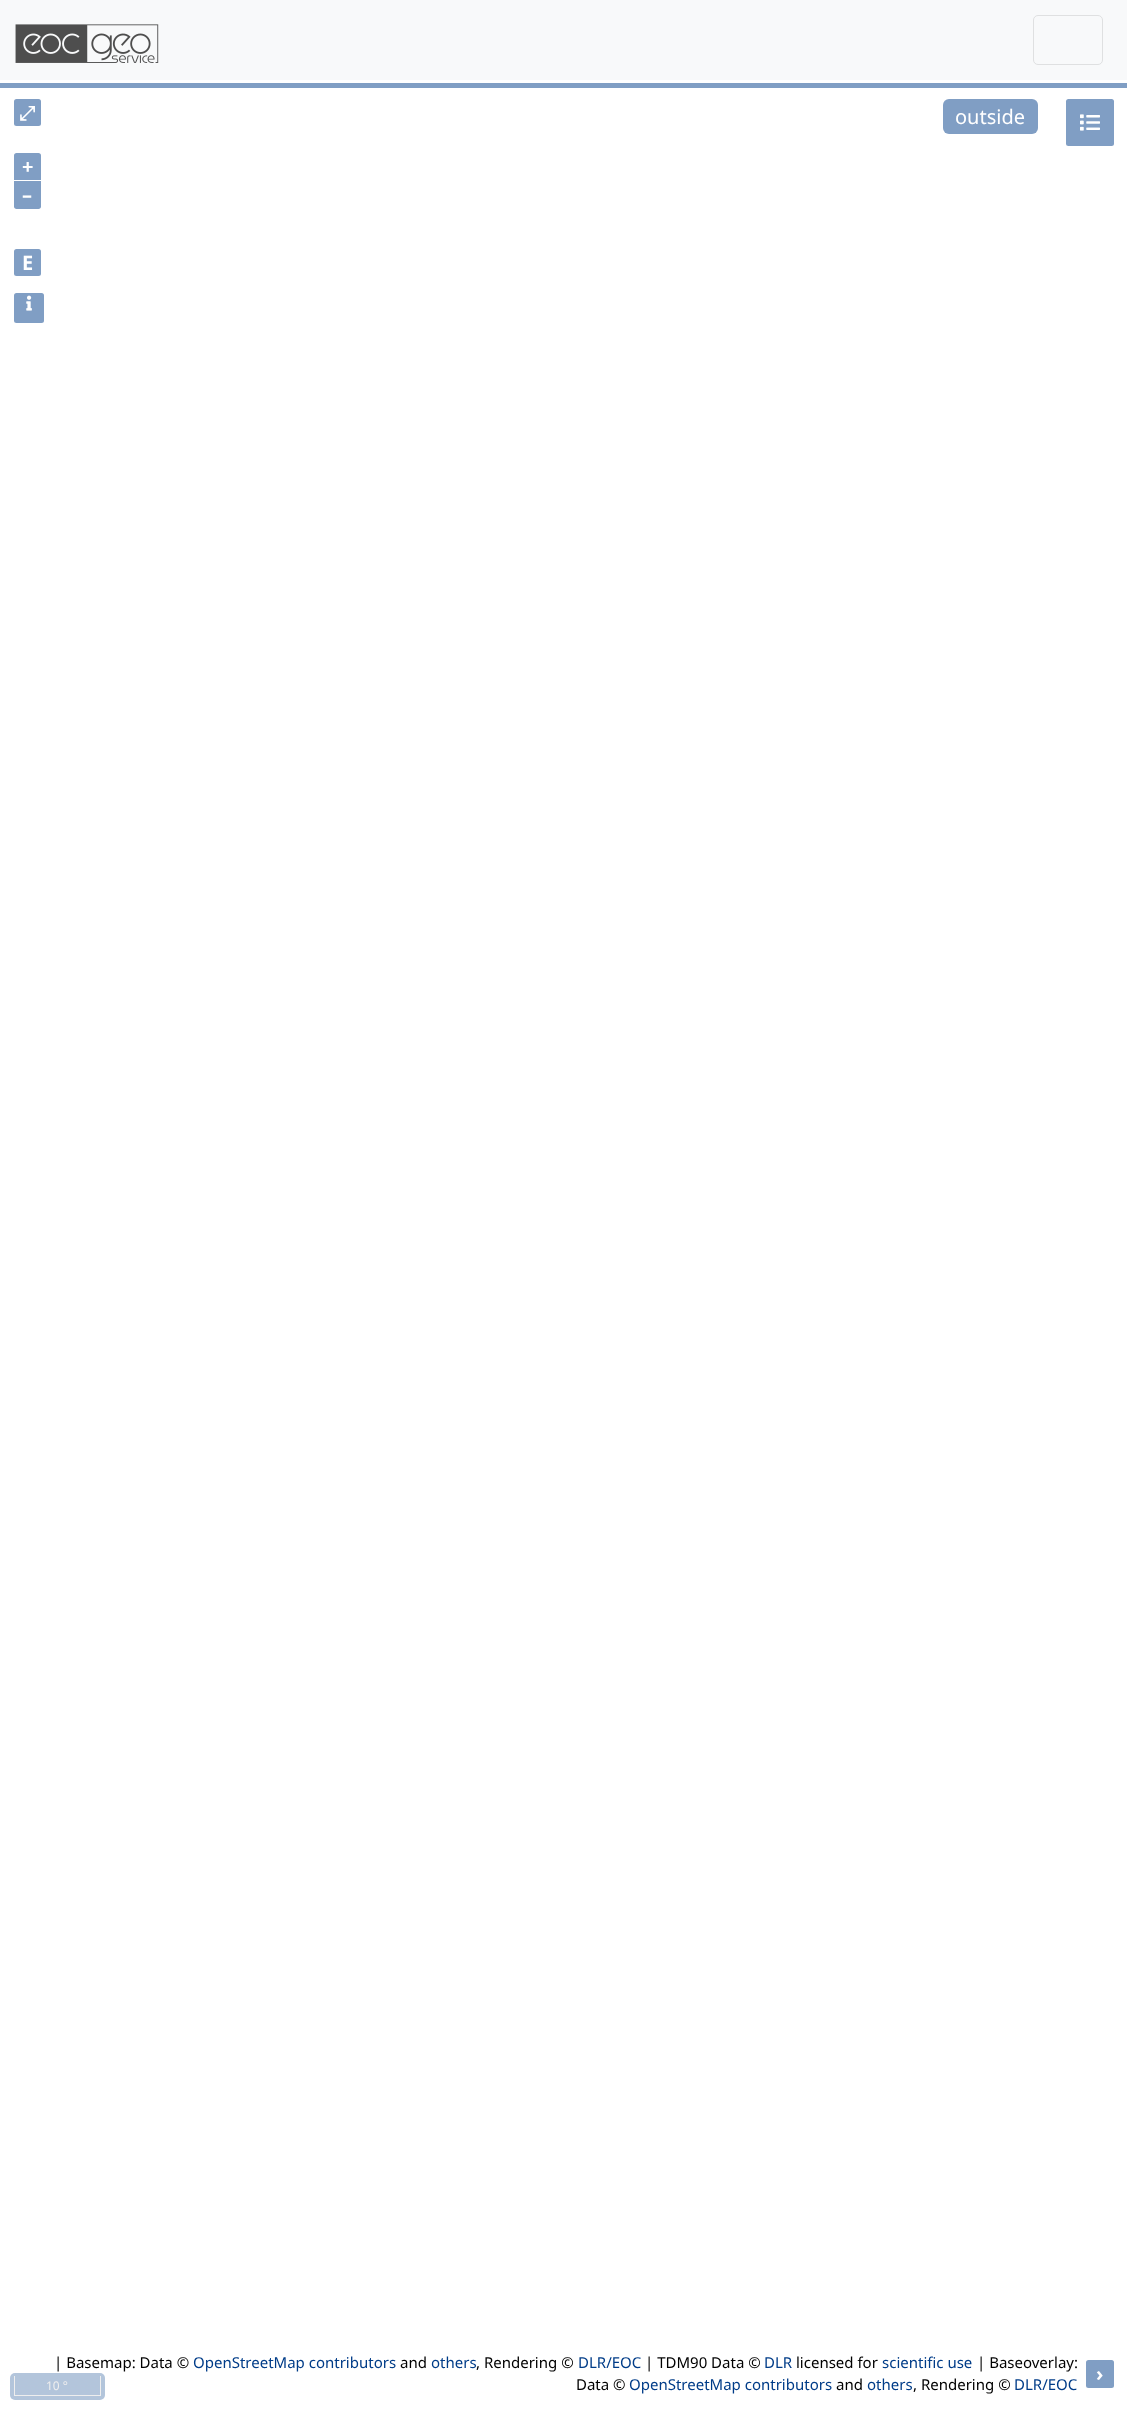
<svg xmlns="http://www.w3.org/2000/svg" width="1127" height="2409">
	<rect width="100%" height="100%" fill="#FFFFFF" />
	<rect x="0" y="0" width="1127" height="80" fill="#F8F9FA" />
	<image x="15" y="24" width="144" height="39" href="assets/img1.png" />
	<rect x="1033.5" y="15.5" width="69" height="49" rx="4.5" fill="none" stroke="#DFE0E1" />
	<rect x="0" y="83" width="1127" height="5" fill="#809EC4" />
	<rect x="14" y="99" width="27" height="27" rx="2.5" fill="#809EC4" />
	<text x="19" y="120" font-family="FreeSerif" font-size="20" font-weight="700" fill="#FFFFFF">⤢</text>
	<rect x="943" y="99" width="95" height="35" rx="6" fill="#809EC4" />
	<text x="955" y="124" font-family="Noto Sans" font-size="20" fill="#FFFFFF">outside</text>
	<rect x="1066" y="99" width="48" height="47" rx="2.5" fill="#809EC4" />
	<image x="1080" y="114" width="20" height="17" href="assets/img2.png" />
	<path d="M16.5 153H38.5C40 153 41 154 41 155.5V180H14V155.5C14 154 15 153 16.5 153Z" fill="#809EC4" />
	<text x="22" y="174" font-family="Noto Sans" font-size="20" font-weight="700" fill="#FFFFFF">+</text>
	<path d="M14 181H41V206.5C41 208 40 209 38.5 209H16.5C15 209 14 208 14 206.5Z" fill="#809EC4" />
	<text x="22" y="202" font-family="Noto Sans" font-size="20" font-weight="700" fill="#FFFFFF">–</text>
	<rect x="14" y="249" width="27" height="27" rx="2.5" fill="#809EC4" />
	<text x="22" y="270" font-family="Noto Sans" font-size="20" font-weight="700" fill="#FFFFFF">E</text>
	<rect x="14" y="293" width="30" height="30" rx="2.5" fill="#809EC4" />
	<image x="26" y="295" width="6" height="16" href="assets/img3.png" />
	<text x="54" y="2368" font-family="Noto Sans" font-size="15" fill="#000000">| Basemap: Data ©</text>
	<text x="193" y="2368" font-family="Noto Sans" font-size="15" fill="#003C88">OpenStreetMap contributors</text>
	<text x="400" y="2368" font-family="Noto Sans" font-size="15" fill="#000000">and</text>
	<text x="431" y="2368" font-family="Noto Sans" font-size="15" fill="#003C88">others</text>
	<text x="476" y="2368" font-family="Noto Sans" font-size="15" fill="#000000">, Rendering ©</text>
	<text x="578" y="2368" font-family="Noto Sans" font-size="15" fill="#003C88">DLR/EOC</text>
	<text x="645" y="2368" font-family="Noto Sans" font-size="15" fill="#000000">| TDM90 Data ©</text>
	<text x="764" y="2368" font-family="Noto Sans" font-size="15" fill="#003C88">DLR</text>
	<text x="796" y="2368" font-family="Noto Sans" font-size="15" fill="#000000">licensed for</text>
	<text x="882" y="2368" font-family="Noto Sans" font-size="15" fill="#003C88">scientific use</text>
	<g font-family="Noto Sans" font-size="15" fill="#000000">
		<text x="977" y="2368">| Baseoverlay:</text>
		<text x="576" y="2390">Data ©</text>
	</g>
	<text x="629" y="2390" font-family="Noto Sans" font-size="15" fill="#003C88">OpenStreetMap contributors</text>
	<text x="836" y="2390" font-family="Noto Sans" font-size="15" fill="#000000">and</text>
	<text x="867" y="2390" font-family="Noto Sans" font-size="15" fill="#003C88">others</text>
	<text x="913" y="2390" font-family="Noto Sans" font-size="15" fill="#000000">, Rendering ©</text>
	<text x="1014" y="2390" font-family="Noto Sans" font-size="15" fill="#003C88">DLR/EOC</text>
	<rect x="1086" y="2360" width="28" height="28" rx="2.5" fill="#809EC4" />
	<text x="1096" y="2381" font-family="Noto Sans" font-size="20" font-weight="700" fill="#FFFFFF">›</text>
	<rect x="10" y="2373" width="95" height="27" rx="5" fill="#B3C5DB" />
	<rect x="100" y="2376" width="1" height="20" fill="#EEEEEE" />
	<rect x="14" y="2395" width="87" height="1" fill="#EEEEEE" />
	<rect x="14" y="2376" width="1" height="20" fill="#EEEEEE" />
	<text x="46" y="2390" font-family="Noto Sans" font-size="12" fill="#EEEEEE">10 °</text>
</svg>
